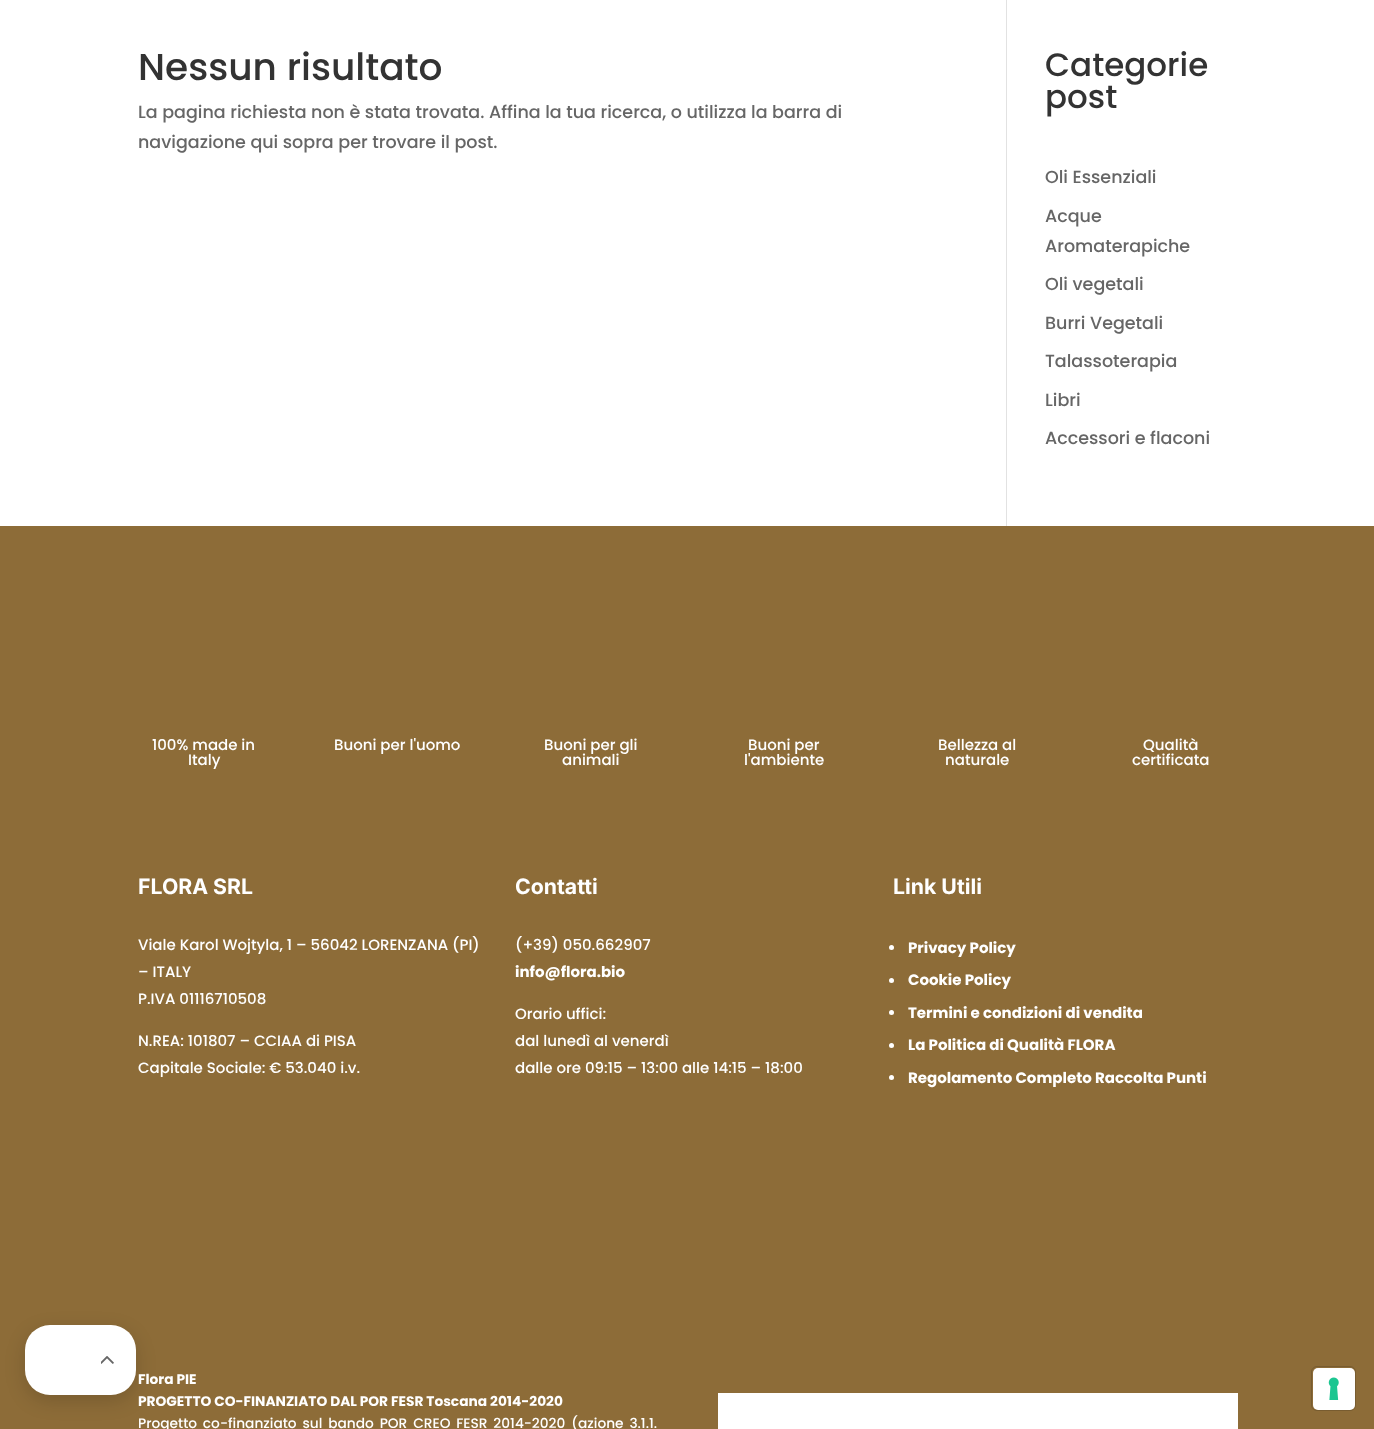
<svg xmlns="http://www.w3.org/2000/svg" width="1374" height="1429">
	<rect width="100%" height="100%" fill="#FFFFFF" />
	<rect x="0" y="526" width="1374" height="903" fill="#8D6C38" />
	<rect x="25" y="1331" width="111" height="70" rx="25" fill="#000000" fill-opacity="0.15" filter="blur(9.5px)" />
	<rect x="25" y="1325" width="111" height="70" rx="25" fill="#FFFFFF" />
	<image x="101" y="1356" width="13" height="8" href="assets/img1.png" />
	<rect x="1006" y="0" width="1" height="526" fill="#E2E2E2" />
	<text x="138" y="80" font-family="Poppins" font-size="37.5" font-weight="500" fill="#333333">Nessun risultato</text>
	<g font-family="Poppins" font-size="17.5" font-weight="500" fill="#666666">
		<text x="138" y="118">La pagina richiesta non è stata trovata. Affina la tua ricerca, o utilizza la barra di</text>
		<text x="138" y="148">navigazione qui sopra per trovare il post.</text>
	</g>
	<g font-family="Poppins" font-size="32.5" font-weight="500" fill="#333333">
		<text x="1045" y="76">Categorie</text>
		<text x="1045" y="108">post</text>
	</g>
	<g font-family="Poppins" font-size="17.5" font-weight="500" fill="#666666">
		<text x="1045" y="183">Oli Essenziali</text>
		<text x="1045" y="222">Acque</text>
		<text x="1045" y="252">Aromaterapiche</text>
		<text x="1045" y="290">Oli vegetali</text>
		<text x="1045" y="329">Burri Vegetali</text>
		<text x="1045" y="367">Talassoterapia</text>
		<text x="1045" y="406">Libri</text>
		<text x="1045" y="444">Accessori e flaconi</text>
	</g>
	<g font-family="Poppins" font-size="15" font-weight="500" fill="#FFFFFF">
		<text x="152" y="750">100% made in</text>
		<text x="188" y="765">Italy</text>
		<text x="334" y="750">Buoni per l'uomo</text>
		<text x="544" y="750">Buoni per gli</text>
		<text x="562" y="765">animali</text>
		<text x="748" y="750">Buoni per</text>
		<text x="744" y="765">l'ambiente</text>
		<text x="938" y="750">Bellezza al</text>
		<text x="945" y="765">naturale</text>
		<text x="1143" y="750">Qualità</text>
		<text x="1132" y="765">certificata</text>
	</g>
	<text x="138" y="894" font-family="Inter" font-size="21.25" font-weight="700" fill="#FFFFFF">FLORA SRL</text>
	<g font-family="Poppins" font-size="15" font-weight="500" fill="#FFFFFF">
		<text x="138" y="950">Viale Karol Wojtyla, 1 – 56042 LORENZANA (PI)</text>
		<text x="138" y="977">– ITALY</text>
		<text x="138" y="1004">P.IVA 01116710508</text>
		<text x="138" y="1046">N.REA: 101807 – CCIAA di PISA</text>
		<text x="138" y="1073">Capitale Sociale: € 53.040 i.v.</text>
	</g>
	<text x="515" y="894" font-family="Inter" font-size="21.25" font-weight="700" fill="#FFFFFF">Contatti</text>
	<text x="515" y="950" font-family="Poppins" font-size="15" font-weight="500" fill="#FFFFFF">(+39) 050.662907</text>
	<text x="515" y="977" font-family="Poppins" font-size="15" font-weight="700" fill="#FFFFFF">info@flora.bio</text>
	<g font-family="Poppins" font-size="15" font-weight="500" fill="#FFFFFF">
		<text x="515" y="1019">Orario uffici:</text>
		<text x="515" y="1046">dal lunedì al venerdì</text>
		<text x="515" y="1073">dalle ore 09:15 – 13:00 alle 14:15 – 18:00</text>
	</g>
	<text x="893" y="894" font-family="Inter" font-size="21.25" font-weight="700" fill="#FFFFFF">Link Utili</text>
	<circle cx="891.5" cy="947.5" r="2.5" fill="#FFFFFF" />
	<text x="908" y="953" font-family="Poppins" font-size="15" font-weight="700" fill="#FFFFFF">Privacy Policy</text>
	<circle cx="891.5" cy="980.5" r="2.5" fill="#FFFFFF" />
	<text x="908" y="985" font-family="Poppins" font-size="15" font-weight="700" fill="#FFFFFF">Cookie Policy</text>
	<circle cx="891.5" cy="1012.5" r="2.5" fill="#FFFFFF" />
	<text x="908" y="1018" font-family="Poppins" font-size="15" font-weight="700" fill="#FFFFFF">Termini e condizioni di vendita</text>
	<circle cx="891.5" cy="1045.5" r="2.5" fill="#FFFFFF" />
	<text x="908" y="1050" font-family="Poppins" font-size="15" font-weight="700" fill="#FFFFFF">La Politica di Qualità FLORA</text>
	<circle cx="891.5" cy="1077.5" r="2.5" fill="#FFFFFF" />
	<text x="908" y="1083" font-family="Poppins" font-size="15" font-weight="700" fill="#FFFFFF">Regolamento Completo Raccolta Punti</text>
	<g font-family="Poppins" font-size="13.75" font-weight="700" fill="#FFFFFF">
		<text x="138" y="1384">Flora PIE</text>
		<text x="138" y="1406">PROGETTO CO-FINANZIATO DAL POR FESR Toscana 2014-2020</text>
	</g>
	<text x="138" y="1428" word-spacing="2.25" font-family="Poppins" font-size="13.75" font-weight="500" fill="#FFFFFF">Progetto co-finanziato sul bando POR CREO FESR 2014-2020 (azione 3.1.1.</text>
	<rect x="718" y="1393" width="520" height="36" fill="#FFFFFF" />
	<rect x="1311.5" y="1366.5" width="44" height="44" rx="5.5" fill="none" stroke="#785C30" />
	<rect x="1313" y="1368" width="42" height="42" rx="5" fill="#FFFFFF" />
	<image x="1328" y="1377" width="11" height="23" href="assets/img2.png" />
</svg>
